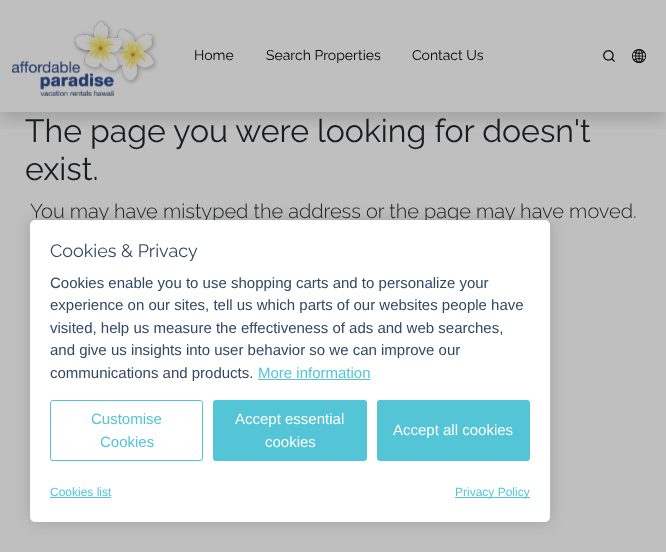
<svg xmlns="http://www.w3.org/2000/svg" width="666" height="552">
	<defs>
		<clipPath id="clip1"><rect x="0" y="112" width="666" height="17" /></clipPath>
	</defs>
	<rect width="100%" height="100%" fill="#BFBFBF" />
	<g clip-path="url(#clip1)">
		<rect x="0" y="8" width="666" height="112" fill="#000000" fill-opacity="0.15" filter="blur(8px)" />
	</g>
	<image x="12" y="20" width="146" height="76" href="assets/img1.png" />
	<g font-family="Raleway" font-size="14" fill="#000000">
		<text x="194" y="60">Home</text>
		<text x="266" y="60">Search Properties</text>
		<text x="412" y="60">Contact Us</text>
	</g>
	<image x="603" y="50" width="12" height="12" href="assets/img2.png" />
	<image x="632" y="49" width="14" height="14" href="assets/img3.png" />
	<g font-family="Raleway" font-size="32" fill="#191C1F">
		<text x="25" y="142">The page you were looking for doesn't</text>
		<text x="25" y="180">exist.</text>
	</g>
	<text x="30" y="218" font-family="Raleway" font-size="20" font-weight="300" fill="#191C1F">You may have mistyped the address or the page may have moved.</text>
	<rect x="30" y="220" width="520" height="302" rx="5" fill="#000000" fill-opacity="0.15" filter="blur(7.5px)" />
	<rect x="30" y="220" width="520" height="302" rx="5" fill="#FFFFFF" />
	<text x="50" y="257" font-family="Raleway" font-size="18" fill="#314963">Cookies &amp; Privacy</text>
	<g font-family="Liberation Sans" font-size="15" fill="#314963">
		<text x="50" y="288">Cookies enable you to use shopping carts and to personalize your</text>
		<text x="50" y="310">experience on our sites, tell us which parts of our websites people have</text>
		<text x="50" y="333">visited, help us measure the effectiveness of ads and web searches,</text>
		<text x="50" y="355">and give us insights into user behavior so we can improve our</text>
		<text x="50" y="378">communications and products.</text>
	</g>
	<text x="258" y="378" font-family="Liberation Sans" font-size="15" fill="#53C5D7">More information</text>
	<rect x="258" y="379" width="112" height="1" fill="#53C5D7" />
	<rect x="50.5" y="400.5" width="152" height="60" rx="2.5" fill="none" stroke="#53C5D7" />
	<g font-family="Liberation Sans" font-size="15" fill="#53C5D7">
		<text x="91" y="424">Customise</text>
		<text x="100" y="447">Cookies</text>
	</g>
	<rect x="213" y="400" width="154" height="61" rx="3" fill="#53C5D7" />
	<g font-family="Liberation Sans" font-size="15" fill="#FFFFFF">
		<text x="235" y="424">Accept essential</text>
		<text x="265" y="447">cookies</text>
	</g>
	<rect x="377" y="400" width="153" height="61" rx="3" fill="#53C5D7" />
	<text x="393" y="435" font-family="Liberation Sans" font-size="15" fill="#FFFFFF">Accept all cookies</text>
	<text x="50" y="496" font-family="Liberation Sans" font-size="12" fill="#53C5D7">Cookies list</text>
	<rect x="50" y="497" width="61" height="1" fill="#53C5D7" />
	<rect x="455" y="497" width="75" height="1" fill="#53C5D7" />
	<text x="455" y="496" font-family="Liberation Sans" font-size="12" fill="#53C5D7">Privacy Policy</text>
</svg>
